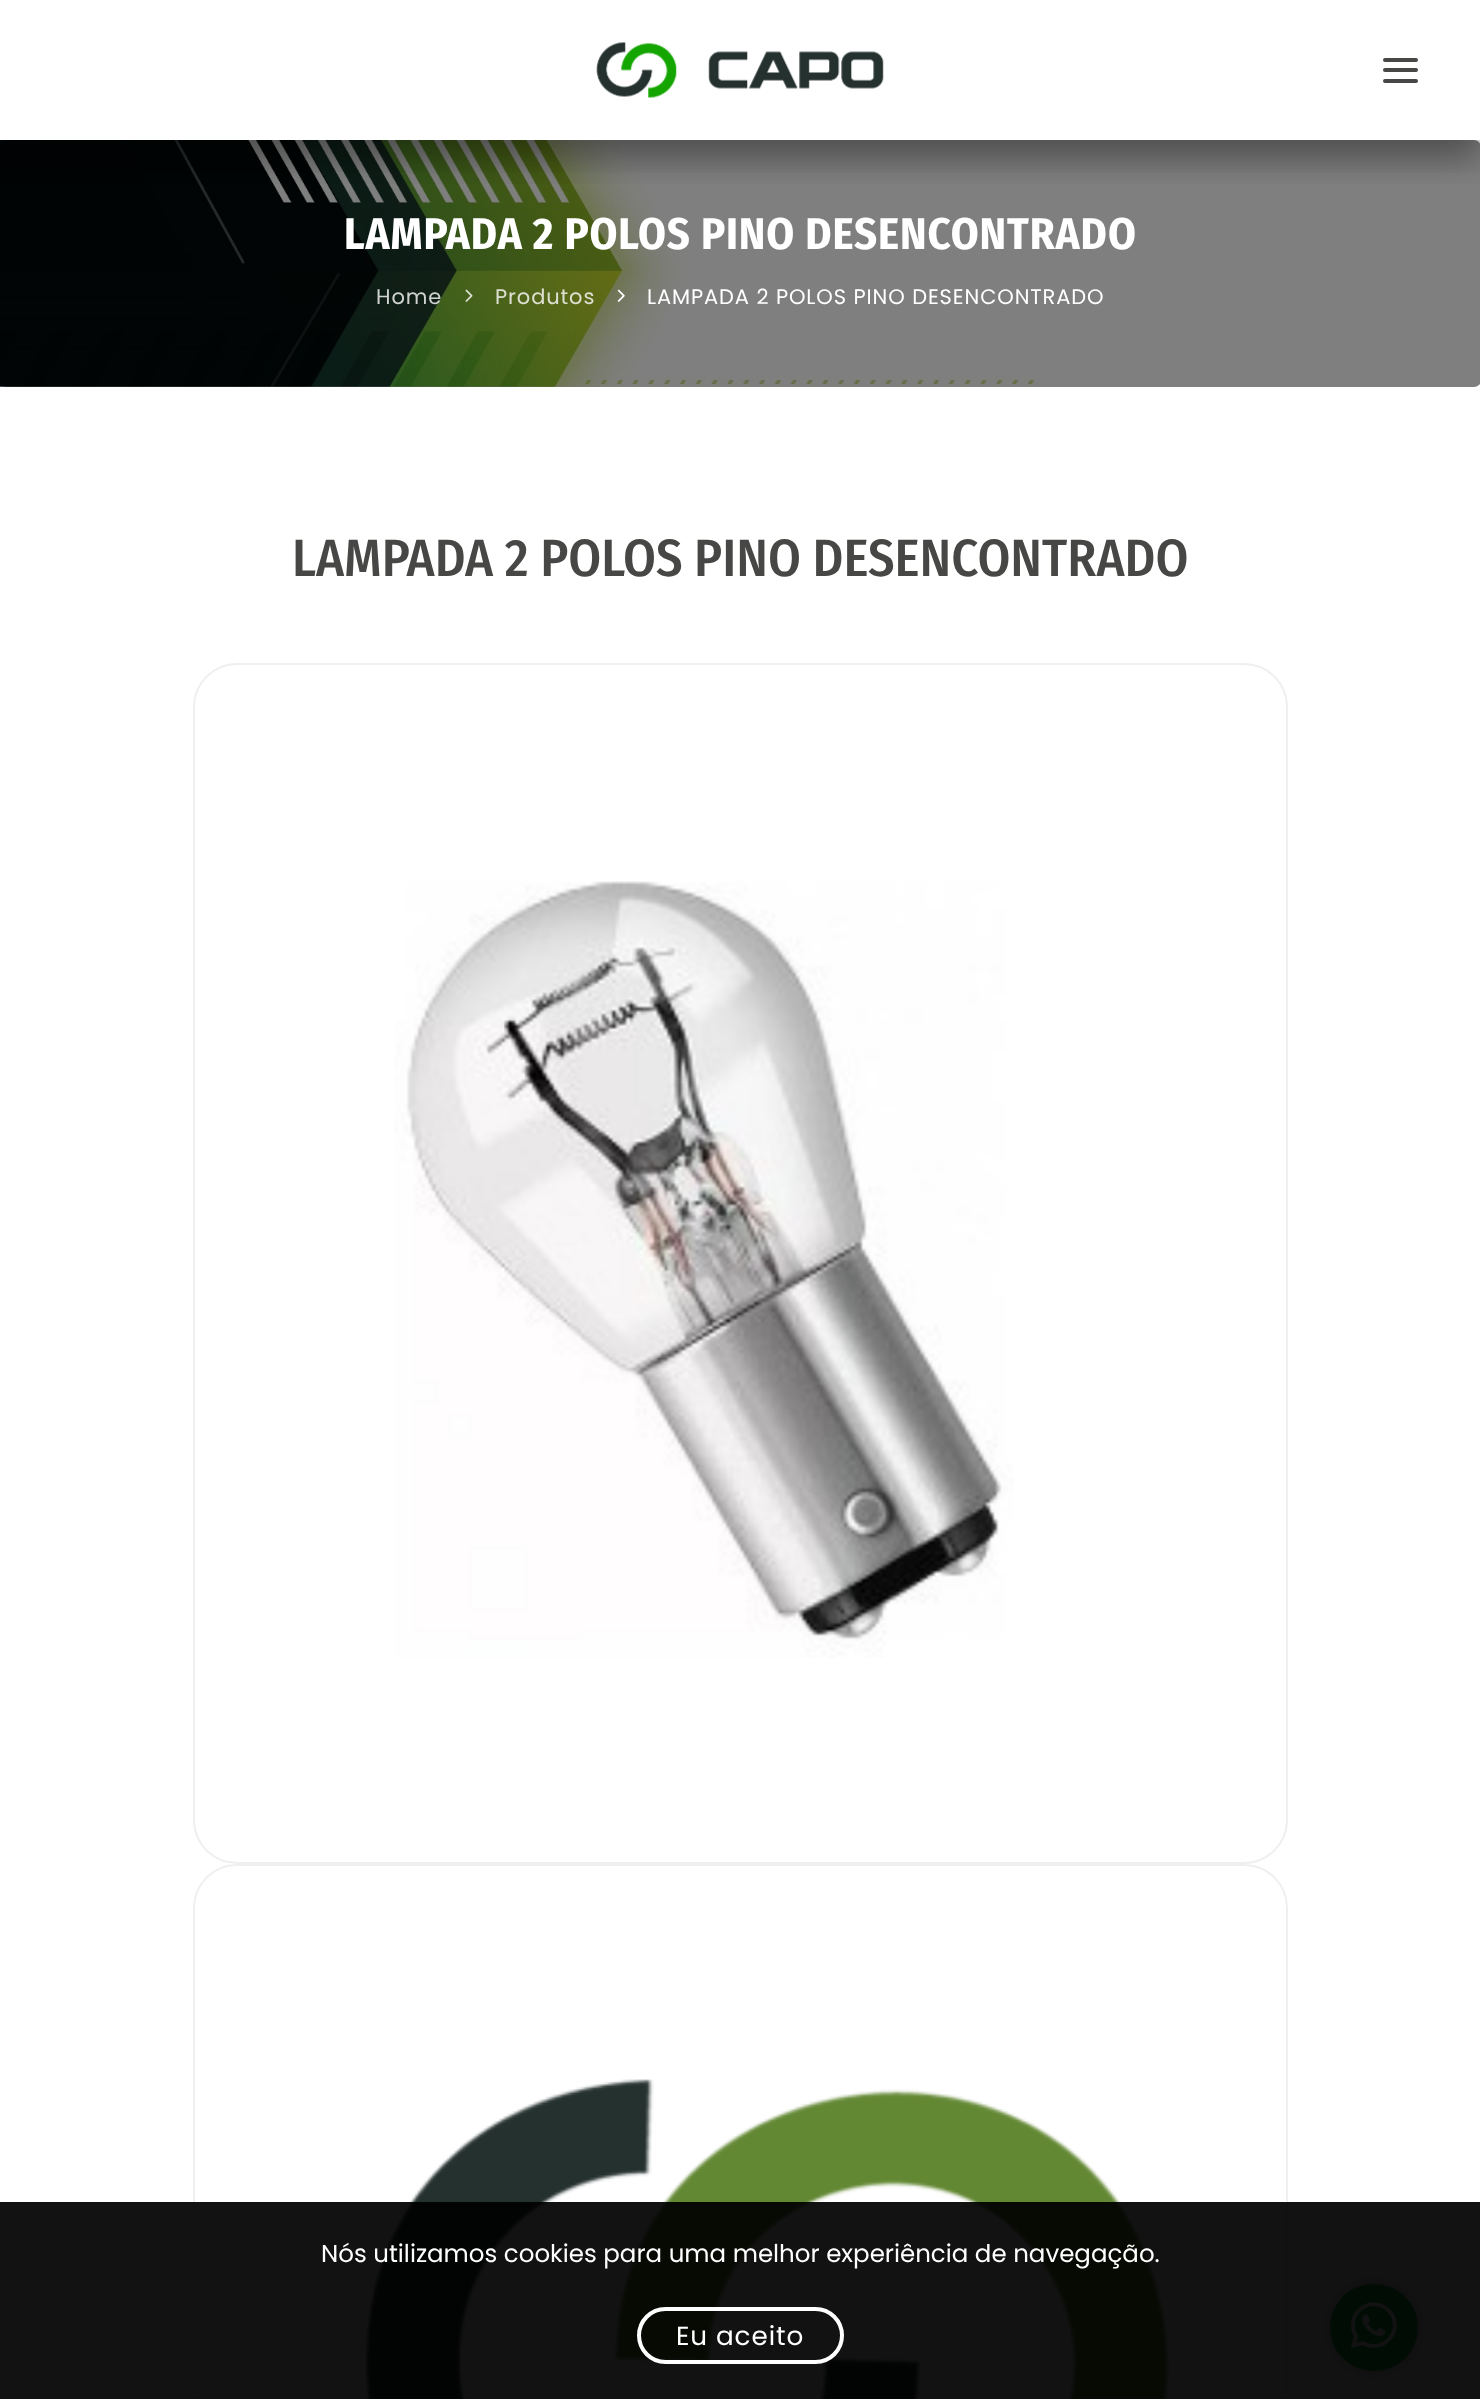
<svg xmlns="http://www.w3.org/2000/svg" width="1480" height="2399">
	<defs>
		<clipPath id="clip1"><rect x="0" y="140" width="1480" height="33" /></clipPath>
		<clipPath id="clip2"><rect x="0" y="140" width="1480" height="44" /></clipPath>
	</defs>
	<rect width="100%" height="100%" fill="#FFFFFF" />
	<image x="0" y="140" width="1480" height="247" href="assets/img2.png" />
	<rect x="0" y="140" width="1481" height="247" rx="7" fill="#000000" fill-opacity="0.5" />
	<g clip-path="url(#clip1)">
		<rect x="0" y="18" width="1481" height="140" fill="#000000" fill-opacity="0.1" filter="blur(17.5px)" />
	</g>
	<g clip-path="url(#clip2)">
		<rect x="0" y="18" width="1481" height="140" fill="#000000" fill-opacity="0.3" filter="blur(17.5px)" />
	</g>
	<image x="596" y="42" width="288" height="56" href="assets/img1.png" />
	<rect x="1383" y="68" width="35" height="4" rx="2" fill="#474745" />
	<rect x="1383" y="58" width="35" height="4" rx="2" fill="#474745" />
	<rect x="1383" y="79" width="35" height="4" rx="2" fill="#474745" />
	<text x="344" y="249" font-family="Fira Sans Condensed" font-size="44.4" font-weight="700" letter-spacing="0.9" fill="#FFFFFF">LAMPADA 2 POLOS PINO DESENCONTRADO</text>
	<text x="376" y="304" font-family="Poppins" font-size="21" letter-spacing="0.9" fill="#CFD2D0">Home</text>
	<image x="465" y="289" width="8" height="13" href="assets/img3.png" />
	<text x="495" y="304" font-family="Poppins" font-size="21" letter-spacing="0.9" fill="#DDE0D1">Produtos</text>
	<image x="617" y="289" width="8" height="13" href="assets/img4.png" />
	<text x="647" y="304" font-family="Poppins" font-size="21" letter-spacing="0.9" fill="#FFFFFF">LAMPADA 2 POLOS PINO DESENCONTRADO</text>
	<text x="292" y="576" font-family="Fira Sans Condensed" font-size="52.5" font-weight="500" fill="#474745">LAMPADA 2 POLOS PINO DESENCONTRADO</text>
	<rect x="194" y="664" width="1093" height="1199" rx="43" fill="none" stroke="#EFEFEF" stroke-width="2" />
	<image x="395" y="881" width="618" height="777" href="assets/img5.png" />
	<rect x="194" y="1865" width="1093" height="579" rx="43" fill="none" stroke="#EFEFEF" stroke-width="2" />
	<image x="365" y="2079" width="805" height="320" href="assets/img6.png" />
	<rect x="1330" y="2284" width="88" height="87" rx="43.5" fill="#000000" fill-opacity="0.27" filter="blur(9px)" />
	<rect x="1330" y="2284" width="88" height="87" rx="43.5" fill="#16AB4E" />
	<image x="1350" y="2302" width="47" height="47" href="assets/img7.png" />
	<rect x="0" y="2202" width="1480" height="197" fill="#000000" fill-opacity="0.93" />
	<text x="321" y="2262" font-family="Poppins" font-size="24.5" fill="#FFFFFF">Nós utilizamos cookies para uma melhor experiência de navegação.</text>
	<rect x="639" y="2309" width="203" height="53" rx="26.5" fill="none" stroke="#FFFFFF" stroke-width="4" />
	<text x="676" y="2345" font-family="Poppins" font-size="26.25" letter-spacing="0.9" fill="#FFFFFF">Eu aceito</text>
</svg>
